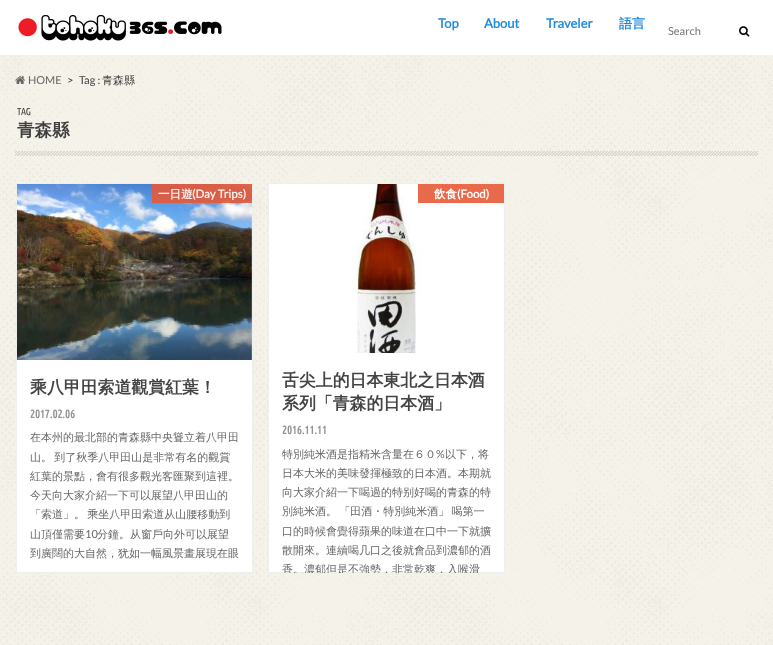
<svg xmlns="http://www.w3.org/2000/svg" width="773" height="645">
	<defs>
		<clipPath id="clip1"><rect x="30" y="367" width="209" height="206" /></clipPath>
		<clipPath id="clip2"><rect x="282" y="359" width="209" height="214" /></clipPath>
	</defs>
	<rect width="100%" height="100%" fill="#FFFFFF" />
	<image x="0" y="55" width="773" height="590" href="assets/img1.png" />
	<image x="18" y="15" width="204" height="26" href="assets/img2.png" />
	<g font-family="Lato" font-size="13" font-weight="700" fill="#1F8BDD">
		<text x="438" y="28">Top</text>
		<text x="484" y="28">About</text>
		<text x="546" y="28">Traveler</text>
	</g>
	<text x="619" y="28" font-family="WenQuanYi Zen Hei" font-size="13" font-weight="700" fill="#1F8BDD">語言</text>
	<text x="668" y="35" font-family="Lato" font-size="11" fill="#757575">Search</text>
	<image x="739" y="26" width="11" height="11" href="assets/img3.png" />
	<image x="15" y="76" width="10" height="8" href="assets/img4.png" />
	<text x="28" y="84" font-family="Lato" font-size="11" fill="#666666">HOME</text>
	<g font-family="Lato" font-size="11" fill="#3E3E3E">
		<text x="67" y="84">&gt;</text>
		<text x="79" y="84">Tag :</text>
	</g>
	<text x="102" y="84" font-family="WenQuanYi Zen Hei" font-size="11" font-weight="500" fill="#3E3E3E">青森縣</text>
	<image x="15" y="151" width="743" height="5" href="assets/img5.png" />
	<text x="17" y="115" font-family="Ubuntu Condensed" font-size="10" fill="#3E3E3E">TAG</text>
	<text x="17" y="136" font-family="WenQuanYi Zen Hei" font-size="17.5" font-weight="700" fill="#3E3E3E">青森縣</text>
	<rect x="16.5" y="183.5" width="236" height="389" fill="#FFFFFF" stroke="#EEEEEE" />
	<image x="17" y="184" width="235" height="176" href="assets/img6.png" />
	<rect x="152" y="184" width="100" height="19" fill="#E55937" fill-opacity="0.9" />
	<text x="158" y="198" font-family="WenQuanYi Zen Hei" font-size="11.5" font-weight="700" fill="#FBEFED">一日遊</text>
	<text x="192" y="198" font-family="Lato" font-size="11.5" font-weight="700" fill="#FBEFED">(Day Trips)</text>
	<text x="30" y="393" font-family="WenQuanYi Zen Hei" font-size="16.9" font-weight="700" fill="#444444">乘八甲田索道觀賞紅葉！</text>
	<text x="30" y="418" font-family="Ubuntu Condensed" font-size="11.5" font-weight="700" fill="#949494">2017.02.06</text>
	<g font-family="WenQuanYi Zen Hei" font-size="11" font-weight="500" fill="#666666">
		<text x="30" y="441">在本州的最北部的青森縣中央聳立着八甲田</text>
		<text x="30" y="461" word-spacing="-1">山。 到了秋季八甲田山是非常有名的觀賞</text>
	</g>
	<g clip-path="url(#clip1)">
		<text x="30" y="480" font-family="WenQuanYi Zen Hei" font-size="11" font-weight="500" fill="#666666">紅葉的景點，會有很多觀光客匯聚到這裡。</text>
	</g>
	<g font-family="WenQuanYi Zen Hei" font-size="11" font-weight="500" fill="#666666">
		<text x="30" y="499">今天向大家介紹一下可以展望八甲田山的</text>
		<text x="30" y="518" word-spacing="-1">「索道」。 乘坐八甲田索道从山腰移動到</text>
		<text x="30" y="538">山頂僅需要</text>
	</g>
	<text x="85" y="538" font-family="Lato" font-size="11" fill="#666666">10</text>
	<g font-family="WenQuanYi Zen Hei" font-size="11" font-weight="500" fill="#666666">
		<text x="97" y="538">分鐘。从窗戶向外可以展望</text>
		<text x="30" y="557">到廣闊的大自然，犹如一幅風景畫展現在眼</text>
	</g>
	<rect x="269" y="353" width="235" height="219" fill="#FFFFFF" />
	<rect x="268.5" y="183.5" width="236" height="389" fill="none" stroke="#EEEEEE" />
	<image x="269" y="184" width="235" height="169" href="assets/img7.png" />
	<rect x="418" y="184" width="86" height="19" fill="#E86A4B" />
	<text x="434" y="198" font-family="WenQuanYi Zen Hei" font-size="11.5" font-weight="700" fill="#FFFFFF">飲食</text>
	<text x="457" y="198" font-family="Lato" font-size="11.5" font-weight="700" fill="#FFFFFF">(Food)</text>
	<g font-family="WenQuanYi Zen Hei" font-size="16.9" font-weight="700" fill="#444444">
		<text x="282" y="386">舌尖上的日本東北之日本酒</text>
		<text x="282" y="409">系列「青森的日本酒」</text>
	</g>
	<text x="282" y="434" font-family="Ubuntu Condensed" font-size="11.5" font-weight="700" fill="#949494">2016.11.11</text>
	<text x="282" y="458" font-family="WenQuanYi Zen Hei" font-size="11" font-weight="500" fill="#666666">特別純米酒是指精米含量在６０</text>
	<text x="436" y="458" font-family="Lato" font-size="11" fill="#666666">%</text>
	<g font-family="WenQuanYi Zen Hei" font-size="11" font-weight="500" fill="#666666">
		<text x="445" y="458">以下，将</text>
		<text x="282" y="477">日本大米的美味發揮極致的日本酒。本期就</text>
		<text x="282" y="496">向大家介紹一下喝過的特别好喝的青森的特</text>
		<text x="282" y="515" word-spacing="-1">別純米酒。 「田酒・特別純米酒」 喝第一</text>
		<text x="282" y="535">口的時候會覺得蘋果的味道在口中一下就擴</text>
		<text x="282" y="554">散開來。連續喝几口之後就會品到濃郁的酒</text>
	</g>
	<g clip-path="url(#clip2)">
		<text x="282" y="573" font-family="WenQuanYi Zen Hei" font-size="11" font-weight="500" fill="#666666">香。濃郁但是不強勢，非常乾爽，入喉滑</text>
	</g>
</svg>
